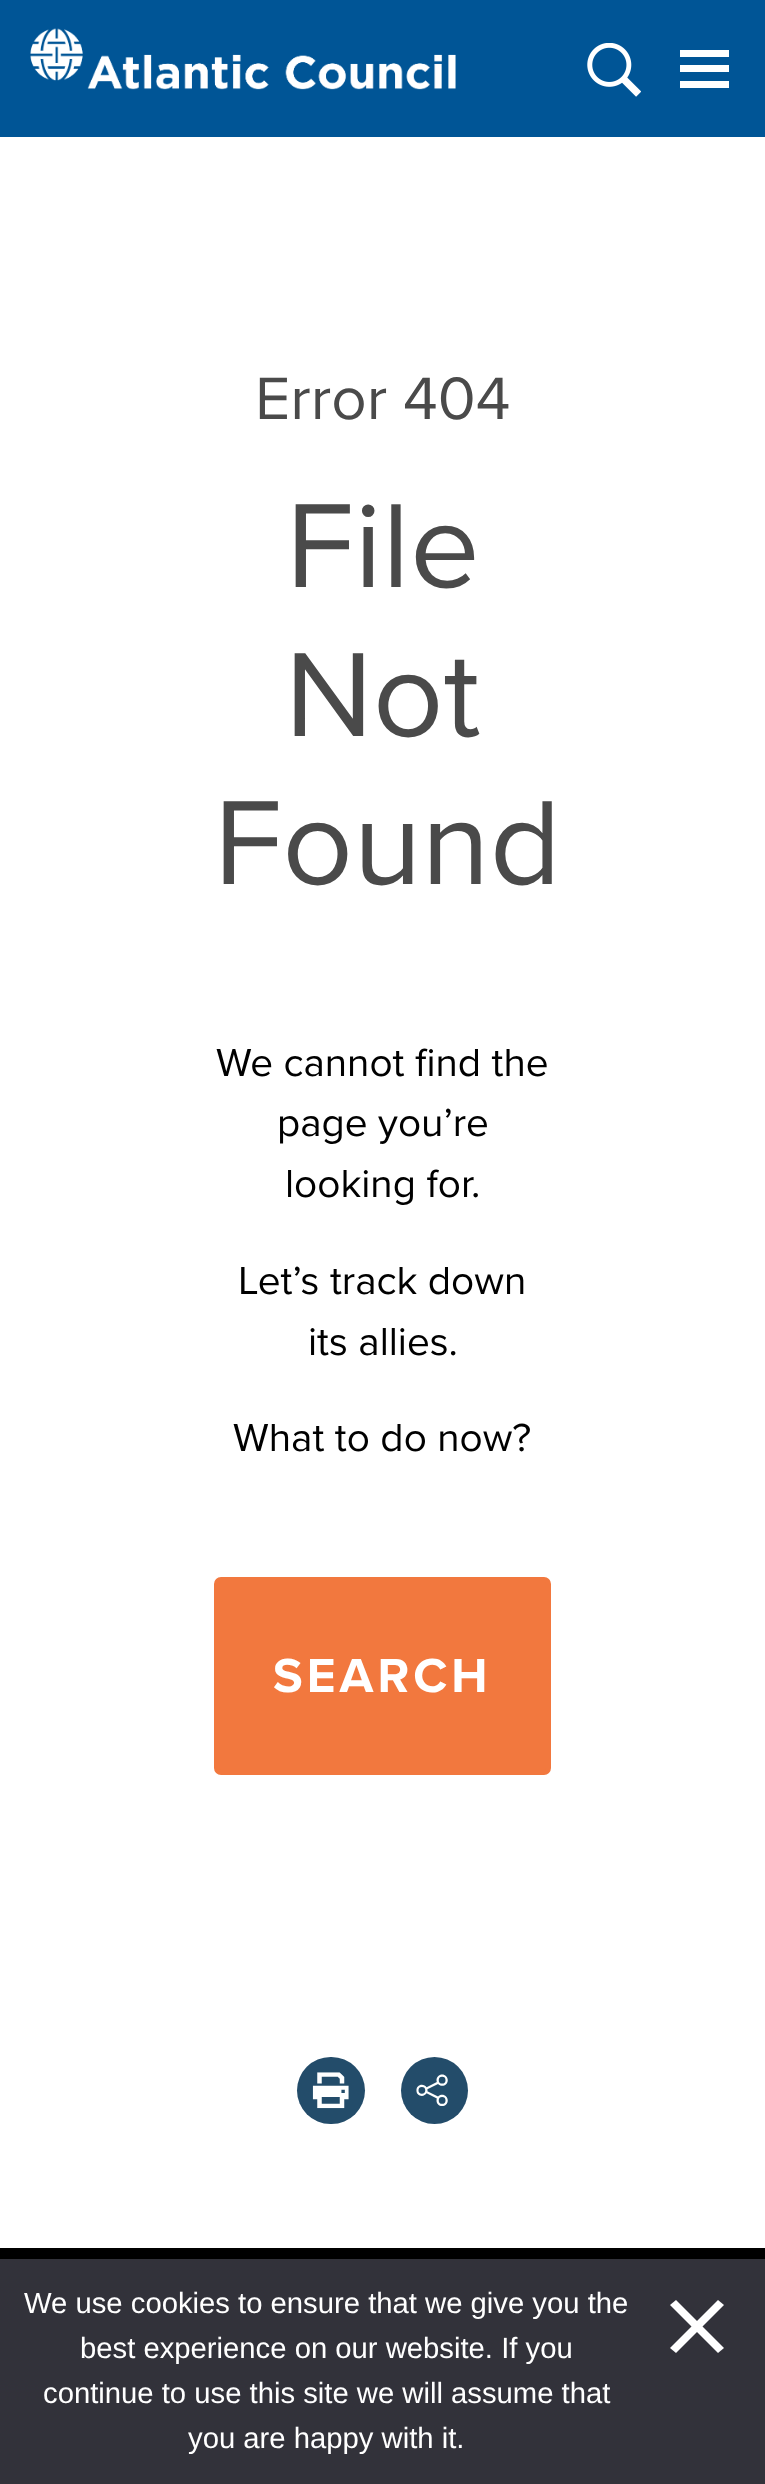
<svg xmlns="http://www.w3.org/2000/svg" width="765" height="2484">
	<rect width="100%" height="100%" fill="#FFFFFF" />
	<rect x="0" y="0" width="765" height="137" fill="#005596" />
	<image x="30" y="28" width="426" height="62" href="assets/img1.png" />
	<image x="587" y="43" width="54" height="54" href="assets/img2.png" />
	<rect x="680" y="50" width="49" height="7" fill="#FFFFFF" />
	<rect x="680" y="65" width="49" height="7" fill="#FFFFFF" />
	<rect x="680" y="81" width="49" height="7" fill="#FFFFFF" />
	<text x="255" y="419" font-family="Proxima Nova" font-size="62" fill="#4A4A4A">Error 404</text>
	<g font-family="Proxima Nova" font-size="124" fill="#4A4A4A">
		<text x="286" y="587">File</text>
		<text x="285" y="736">Not</text>
		<text x="214" y="884">Found</text>
	</g>
	<g font-family="Proxima Nova" font-size="40.5" fill="#000000">
		<text x="216" y="1076">We cannot find the</text>
		<text x="277" y="1136">page you’re</text>
		<text x="285" y="1197">looking for.</text>
		<text x="238" y="1294">Let’s track down</text>
		<text x="308" y="1355">its allies.</text>
		<text x="233" y="1451">What to do now?</text>
	</g>
	<rect x="216.5" y="1579.5" width="332" height="193" rx="4.5" fill="#F2783E" stroke="#F2783E" stroke-width="5" />
	<text x="273" y="1692" font-family="Proxima Nova" font-size="49.5" font-weight="700" letter-spacing="4" fill="#FFFFFF">SEARCH</text>
	<rect x="297" y="2057" width="68" height="67" rx="33.5" fill="#234C6A" />
	<image x="312" y="2072" width="37" height="37" href="assets/img3.png" />
	<circle cx="434.5" cy="2090.5" r="33.5" fill="#234C6A" />
	<image x="416" y="2074" width="32" height="32" href="assets/img4.png" />
	<rect x="0" y="2248" width="765" height="11" fill="#000000" />
	<rect x="0" y="2259" width="765" height="225" fill="#32323A" />
	<g font-family="Liberation Sans" font-size="29.25" fill="#FFFFFF">
		<text x="24" y="2313">We use cookies to ensure that we give you the</text>
		<text x="80" y="2358">best experience on our website. If you</text>
		<text x="43" y="2403">continue to use this site we will assume that</text>
		<text x="188" y="2448">you are happy with it.</text>
	</g>
	<path d="M718 2300L724 2305L676 2353L670 2348Z" fill="#FFFFFF" />
	<path d="M670 2305L676 2300L724 2348L718 2353Z" fill="#FFFFFF" />
</svg>
